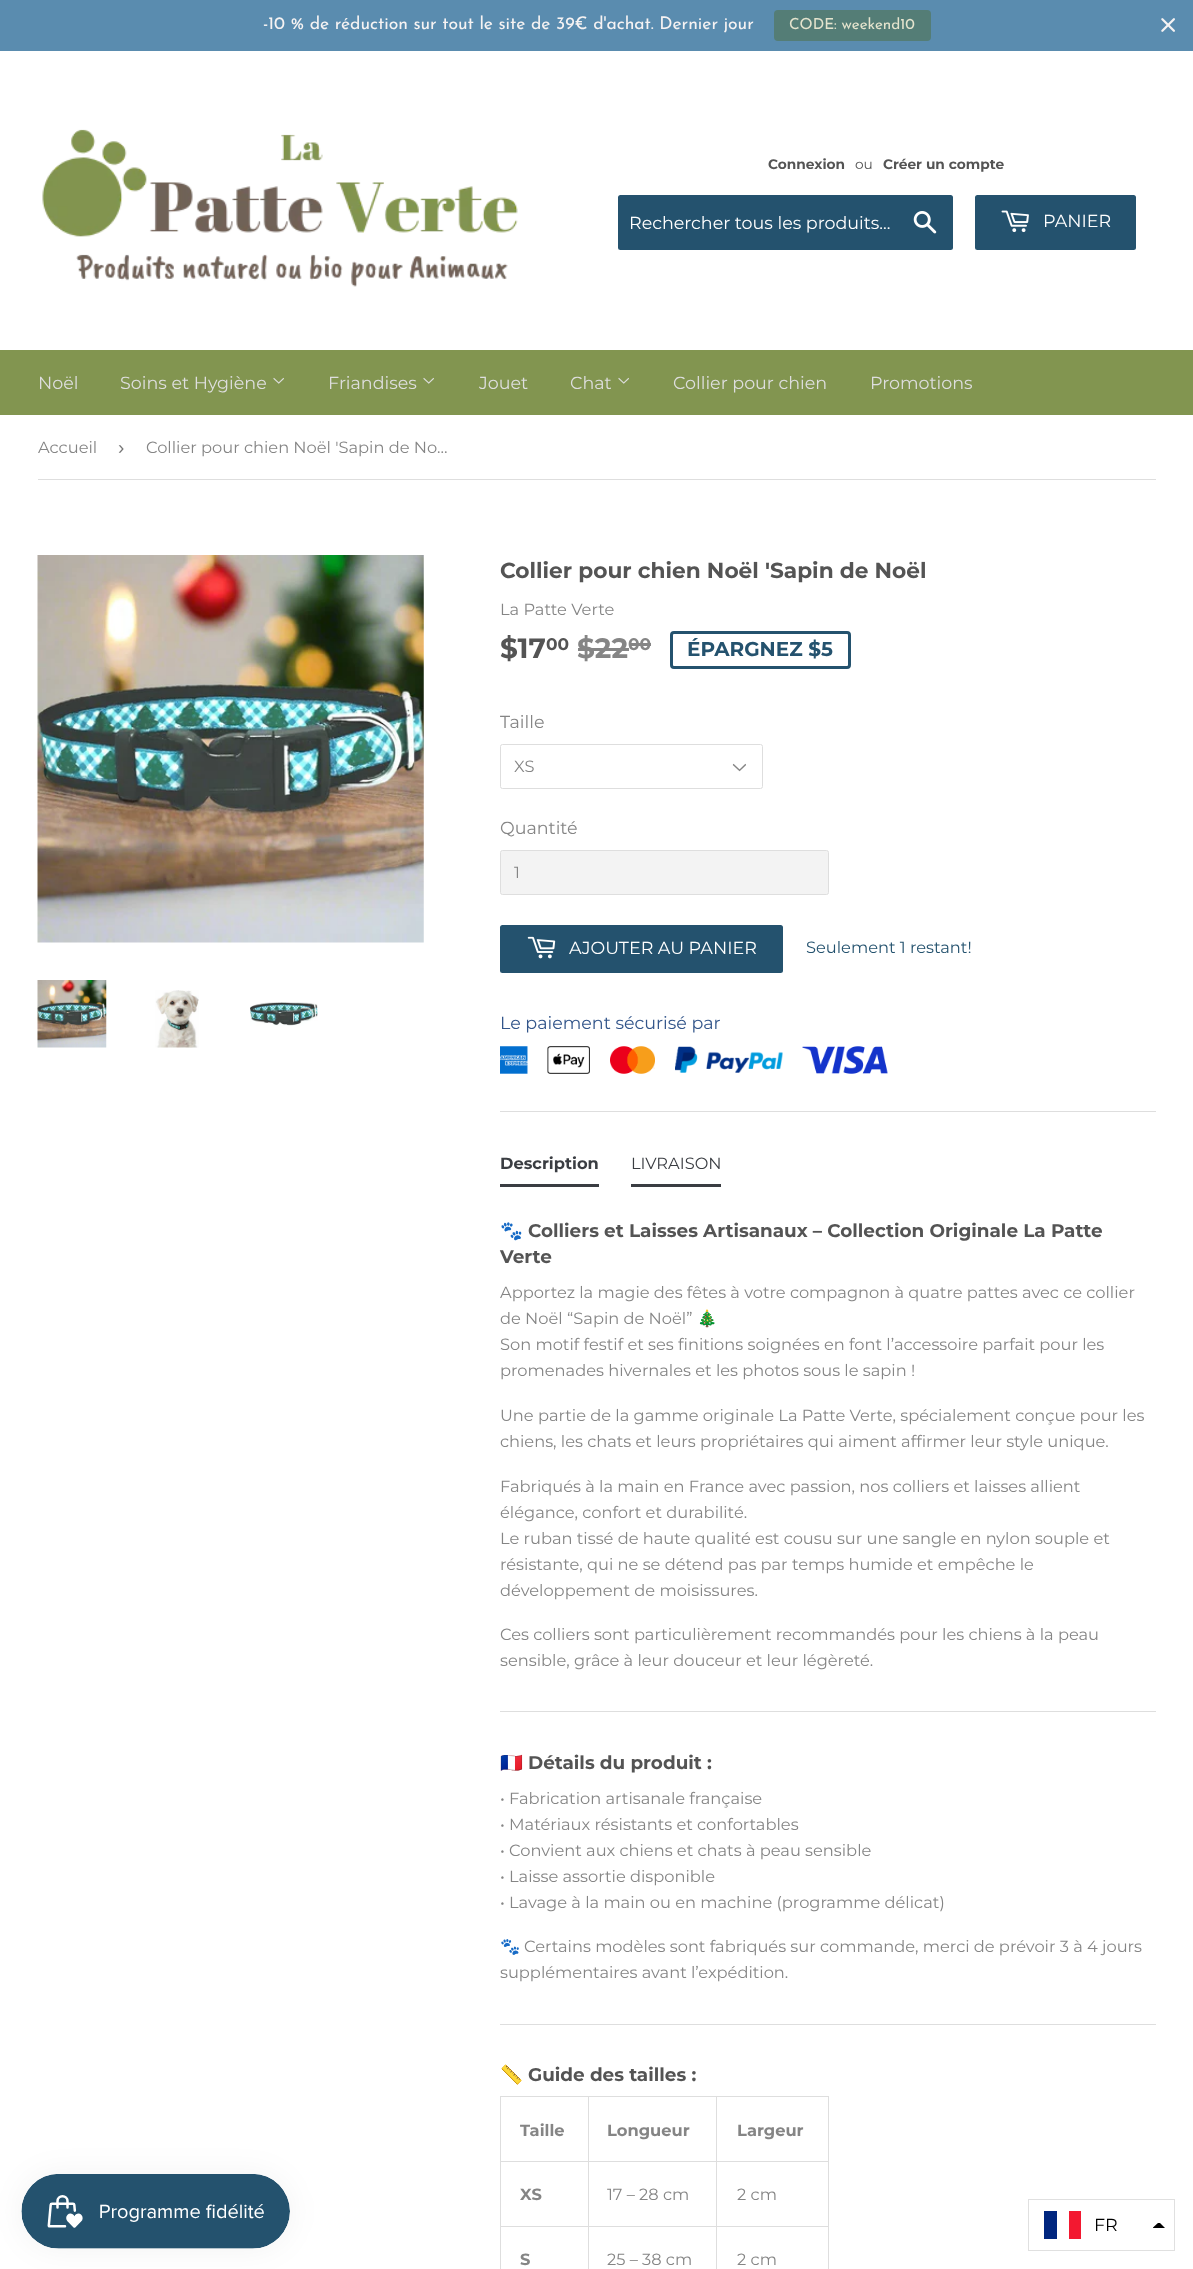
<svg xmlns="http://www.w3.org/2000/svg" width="1193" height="2269">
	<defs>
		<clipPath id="clip1"><rect x="1153" y="2223" width="12" height="6" /></clipPath>
	</defs>
	<rect width="100%" height="100%" fill="#FFFFFF" />
	<rect x="0" y="0" width="1193" height="51" fill="#5A8CAF" />
	<text x="263" y="29" font-family="Josefin Sans" font-size="17.5" font-weight="100" fill="#F6F3F3">-10 % de réduction sur tout le site de 39€ d'achat. Dernier jour</text>
	<rect x="774" y="10" width="157" height="31" rx="4" fill="#547D76" />
	<text x="789" y="29" font-family="Josefin Sans" font-size="15.25" font-weight="100" fill="#E5E4CE">CODE: weekend10</text>
	<image x="1161" y="18" width="14" height="14" href="assets/img1.png" />
	<image x="42" y="129" width="476" height="158" href="assets/img2.png" />
	<text x="768" y="169" font-family="Montserrat" font-size="13.75" font-weight="700" fill="#545454">Connexion</text>
	<text x="855" y="169" font-family="Montserrat" font-size="13.75" fill="#545454">ou</text>
	<text x="883" y="169" font-family="Montserrat" font-size="13.75" font-weight="700" fill="#545454">Créer un compte</text>
	<rect x="618" y="195" width="335" height="55" rx="2.5" fill="#24526E" />
	<text x="629" y="229" font-family="Montserrat" font-size="17.5" fill="#FFFFFF">Rechercher tous les produits...</text>
	<image x="913" y="211" width="24" height="23" href="assets/img3.png" />
	<rect x="975" y="195" width="161" height="55" rx="2.5" fill="#24526E" />
	<image x="1001" y="210" width="28" height="23" href="assets/img4.png" />
	<text x="1043" y="227" font-family="Montserrat" font-size="17.5" fill="#FFFFFF">PANIER</text>
	<rect x="0" y="350" width="1193" height="65" fill="#829550" />
	<g font-family="Montserrat" font-size="17.5" fill="#DEDEDE">
		<text x="38" y="389">Noël</text>
		<text x="120" y="389">Soins et Hygiène</text>
	</g>
	<image x="273" y="377" width="11" height="7" href="assets/img5.png" />
	<text x="328" y="389" font-family="Montserrat" font-size="17.5" fill="#DEDEDE">Friandises</text>
	<image x="423" y="377" width="11" height="7" href="assets/img5.png" />
	<g font-family="Montserrat" font-size="17.5" fill="#DEDEDE">
		<text x="479" y="389">Jouet</text>
		<text x="570" y="389">Chat</text>
	</g>
	<image x="618" y="377" width="11" height="7" href="assets/img5.png" />
	<g font-family="Montserrat" font-size="17.5" fill="#DEDEDE">
		<text x="673" y="389">Collier pour chien</text>
		<text x="870" y="389">Promotions</text>
	</g>
	<rect x="38" y="479" width="1118" height="1" fill="#DEDEDE" />
	<text x="38" y="453" font-family="Montserrat" font-size="16.25" fill="#858585">Accueil</text>
	<text x="118" y="454" font-family="Liberation Sans" font-size="19" fill="#767676">›</text>
	<text x="146" y="453" font-family="Montserrat" font-size="16.25" fill="#858585">Collier pour chien Noël 'Sapin de No…</text>
	<image x="37" y="555" width="387" height="388" href="assets/img6.png" />
	<image x="37" y="980" width="70" height="68" href="assets/img7.png" />
	<image x="155" y="990" width="44" height="58" href="assets/img8.png" />
	<image x="250" y="1002" width="68" height="24" href="assets/img9.png" />
	<text x="500" y="578" font-family="Montserrat" font-size="21.7" font-weight="700" fill="#545454">Collier pour chien Noël 'Sapin de Noël</text>
	<text x="500" y="615" font-family="Montserrat" font-size="16.25" fill="#858585">La Patte Verte</text>
	<text x="500" y="658" font-family="Montserrat" font-size="28" font-weight="700" fill="#545454">$17</text>
	<text x="546" y="650" font-family="Montserrat" font-size="17" font-weight="700" fill="#545454">00</text>
	<text x="577" y="658" font-family="Montserrat" font-size="28" font-weight="700" fill="#858585">$22</text>
	<rect x="578" y="648" width="51" height="3" fill="#858585" />
	<text x="628" y="650" font-family="Montserrat" font-size="17" font-weight="700" fill="#858585">00</text>
	<rect x="629" y="643" width="22" height="3" fill="#858585" />
	<rect x="671.5" y="632.5" width="178" height="35" rx="2.5" fill="none" stroke="#24526E" stroke-width="3" />
	<text x="687" y="656" font-family="Montserrat" font-size="20" font-weight="700" fill="#24526E">ÉPARGNEZ $5</text>
	<text x="500" y="728" font-family="Montserrat" font-size="17.5" fill="#858585">Taille</text>
	<image x="732" y="763" width="14" height="9" href="assets/img10.png" />
	<rect x="500.5" y="744.5" width="262" height="44" rx="2" fill="none" stroke="#DEDEDE" />
	<text x="514" y="772" font-family="Montserrat" font-size="16.25" fill="#858585">XS</text>
	<text x="500" y="834" font-family="Montserrat" font-size="17.5" fill="#858585">Quantité</text>
	<rect x="500.5" y="850.5" width="328" height="44" rx="2" fill="#F3F3F3" stroke="#DEDEDE" />
	<text x="514" y="878" font-family="Montserrat" font-size="16.25" fill="#858585">1</text>
	<rect x="500" y="925" width="283" height="48" rx="2.5" fill="#24526E" />
	<image x="527" y="936" width="29" height="23" href="assets/img11.png" />
	<text x="569" y="954" font-family="Montserrat" font-size="17.5" fill="#FFFFFF">AJOUTER AU PANIER</text>
	<text x="806" y="953" font-family="Montserrat" font-size="16.25" fill="#24526E">Seulement 1 restant!</text>
	<text x="500" y="1029" font-family="Montserrat" font-size="17.5" fill="#32558A">Le paiement sécurisé par</text>
	<image x="500" y="1046" width="28" height="28" href="assets/img12.png" />
	<image x="547" y="1046" width="43" height="28" href="assets/img13.png" />
	<image x="610" y="1046" width="45" height="28" href="assets/img14.png" />
	<image x="675" y="1046" width="108" height="27" href="assets/img15.png" />
	<image x="802" y="1046" width="86" height="28" href="assets/img16.png" />
	<rect x="500" y="1111" width="656" height="1" fill="#DEDEDE" />
	<rect x="500" y="1184" width="99" height="3" fill="#3A3D42" />
	<text x="500" y="1169" font-family="Montserrat" font-size="16.25" font-weight="700" fill="#3A3D42">Description</text>
	<rect x="631" y="1184" width="90" height="3" fill="#3A3D42" />
	<text x="631" y="1169" font-family="Montserrat" font-size="16.25" fill="#3A3D42">LIVRAISON</text>
	<text x="500" y="1237" font-family="Noto Color Emoji" font-size="18.4" font-weight="700" fill="#545454">🐾</text>
	<g font-family="Montserrat" font-size="18.4" font-weight="700" fill="#545454">
		<text x="528" y="1237">Colliers et Laisses Artisanaux – Collection Originale La Patte</text>
		<text x="500" y="1263">Verte</text>
	</g>
	<g font-family="Montserrat" font-size="16.25" fill="#858585">
		<text x="500" y="1298">Apportez la magie des fêtes à votre compagnon à quatre pattes avec ce collier</text>
		<text x="500" y="1324">de Noël “Sapin de Noël”</text>
	</g>
	<text x="697" y="1324" font-family="Noto Color Emoji" font-size="16.25" fill="#858585">🎄</text>
	<g font-family="Montserrat" font-size="16.25" fill="#858585">
		<text x="500" y="1350">Son motif festif et ses finitions soignées en font l’accessoire parfait pour les</text>
		<text x="500" y="1376">promenades hivernales et les photos sous le sapin !</text>
		<text x="500" y="1421">Une partie de la gamme originale La Patte Verte, spécialement conçue pour les</text>
		<text x="500" y="1447">chiens, les chats et leurs propriétaires qui aiment affirmer leur style unique.</text>
		<text x="500" y="1492">Fabriqués à la main en France avec passion, nos colliers et laisses allient</text>
		<text x="500" y="1518">élégance, confort et durabilité.</text>
		<text x="500" y="1544">Le ruban tissé de haute qualité est cousu sur une sangle en nylon souple et</text>
		<text x="500" y="1570">résistante, qui ne se détend pas par temps humide et empêche le</text>
		<text x="500" y="1596">développement de moisissures.</text>
		<text x="500" y="1640">Ces colliers sont particulièrement recommandés pour les chiens à la peau</text>
		<text x="500" y="1666">sensible, grâce à leur douceur et leur légèreté.</text>
	</g>
	<rect x="500" y="1711" width="656" height="1" fill="#DEDEDE" />
	<text x="500" y="1769" font-family="Noto Color Emoji" font-size="18.4" font-weight="700" fill="#545454">🇫🇷</text>
	<text x="528" y="1769" font-family="Montserrat" font-size="18.4" font-weight="700" fill="#545454">Détails du produit :</text>
	<g font-family="Montserrat" font-size="16.25" fill="#858585">
		<text x="500" y="1804">• Fabrication artisanale française</text>
		<text x="500" y="1830">• Matériaux résistants et confortables</text>
		<text x="500" y="1856">• Convient aux chiens et chats à peau sensible</text>
		<text x="500" y="1882">• Laisse assortie disponible</text>
		<text x="500" y="1908">• Lavage à la main ou en machine (programme délicat)</text>
	</g>
	<text x="500" y="1952" font-family="Noto Color Emoji" font-size="16.25" fill="#858585">🐾</text>
	<g font-family="Montserrat" font-size="16.25" fill="#858585">
		<text x="524" y="1952">Certains modèles sont fabriqués sur commande, merci de prévoir 3 à 4 jours</text>
		<text x="500" y="1978">supplémentaires avant l’expédition.</text>
	</g>
	<rect x="500" y="2024" width="656" height="1" fill="#DEDEDE" />
	<text x="500" y="2081" font-family="Noto Color Emoji" font-size="18.4" font-weight="700" fill="#545454">📏</text>
	<text x="528" y="2081" font-family="Montserrat" font-size="18.4" font-weight="700" fill="#545454">Guide des tailles :</text>
	<rect x="716" y="2096" width="113" height="1" fill="#DEDEDE" />
	<rect x="716" y="2161" width="113" height="1" fill="#DEDEDE" />
	<rect x="716" y="2226" width="113" height="1" fill="#DEDEDE" />
	<rect x="716" y="2226" width="1" height="43" fill="#DEDEDE" />
	<rect x="588" y="2226" width="130" height="1" fill="#DEDEDE" />
	<rect x="716" y="2161" width="1" height="67" fill="#DEDEDE" />
	<rect x="588" y="2161" width="130" height="1" fill="#DEDEDE" />
	<rect x="716" y="2096" width="1" height="67" fill="#DEDEDE" />
	<rect x="588" y="2096" width="130" height="1" fill="#DEDEDE" />
	<rect x="588" y="2226" width="1" height="43" fill="#DEDEDE" />
	<rect x="500" y="2226" width="89" height="1" fill="#DEDEDE" />
	<rect x="588" y="2161" width="1" height="67" fill="#DEDEDE" />
	<rect x="500" y="2161" width="89" height="1" fill="#DEDEDE" />
	<rect x="588" y="2096" width="1" height="67" fill="#DEDEDE" />
	<rect x="500" y="2096" width="89" height="1" fill="#DEDEDE" />
	<rect x="500" y="2226" width="1" height="43" fill="#DEDEDE" />
	<rect x="500" y="2161" width="1" height="67" fill="#DEDEDE" />
	<rect x="500" y="2096" width="1" height="67" fill="#DEDEDE" />
	<g font-family="Montserrat" font-size="16.25" font-weight="700" fill="#858585">
		<text x="520" y="2136">Taille</text>
		<text x="607" y="2136">Longueur</text>
	</g>
	<rect x="828" y="2226" width="1" height="43" fill="#DEDEDE" />
	<rect x="828" y="2161" width="1" height="67" fill="#DEDEDE" />
	<rect x="828" y="2096" width="1" height="67" fill="#DEDEDE" />
	<g font-family="Montserrat" font-size="16.25" font-weight="700" fill="#858585">
		<text x="737" y="2136">Largeur</text>
		<text x="520" y="2200">XS</text>
	</g>
	<g font-family="Montserrat" font-size="16.25" fill="#858585">
		<text x="607" y="2200">17 – 28 cm</text>
		<text x="737" y="2200">2 cm</text>
	</g>
	<text x="520" y="2265" font-family="Montserrat" font-size="16.25" font-weight="700" fill="#858585">S</text>
	<g font-family="Montserrat" font-size="16.25" fill="#858585">
		<text x="607" y="2265">25 – 38 cm</text>
		<text x="737" y="2265">2 cm</text>
	</g>
	<rect x="21" y="2174" width="269" height="75" rx="37.5" fill="#000000" fill-opacity="0.05" filter="blur(15.5px)" />
	<image x="21" y="2174" width="269" height="75" href="assets/img17.png" />
	<rect x="1028.5" y="2199.5" width="146" height="51" fill="none" stroke="#E0E0E0" />
	<rect x="1044" y="2211" width="13" height="28" fill="#00267F" />
	<rect x="1069" y="2211" width="12" height="28" fill="#F31830" />
	<text x="1094" y="2231" font-family="Montserrat" font-size="17.5" fill="#000000">FR</text>
	<g clip-path="url(#clip1)">
		<path d="M1152.5 2228L1159 2222L1165 2228Z" fill="#000000" fill-rule="evenodd" />
	</g>
</svg>
